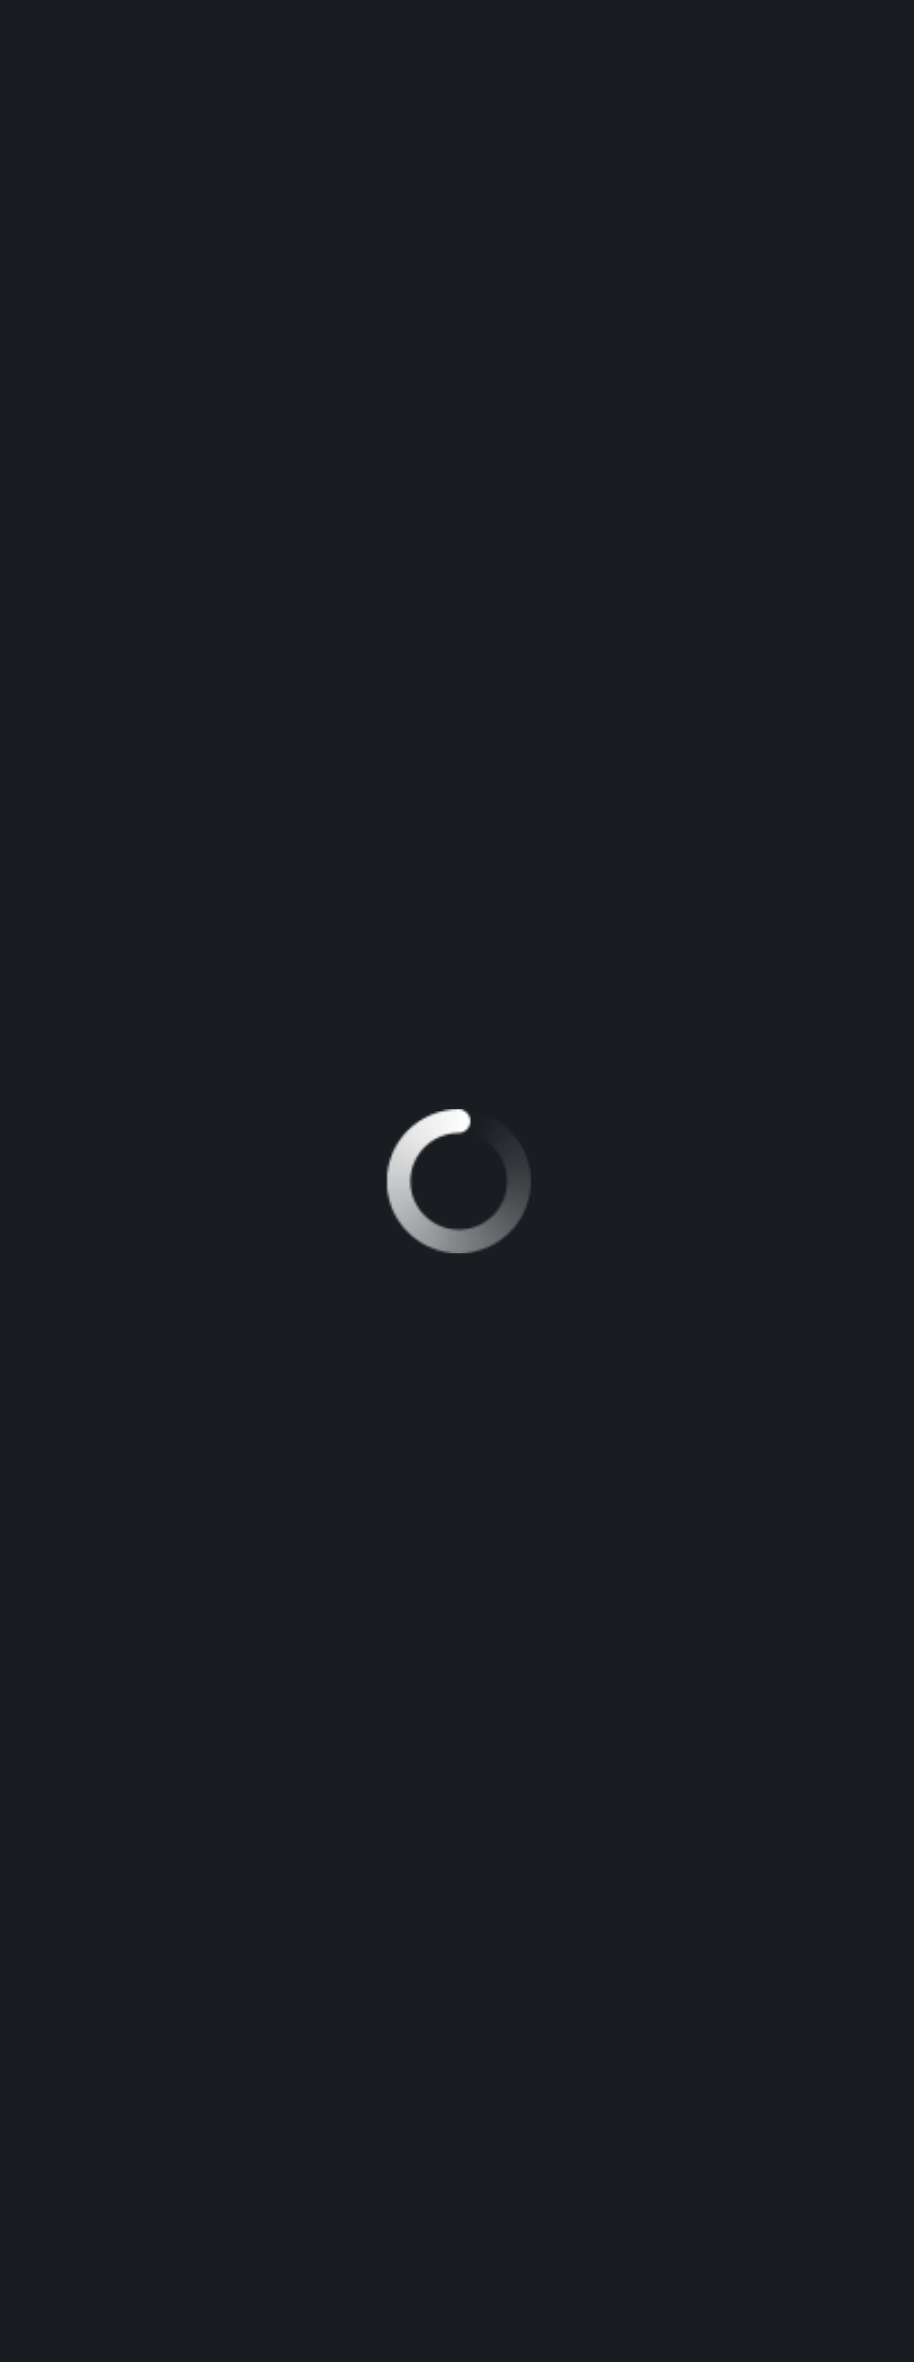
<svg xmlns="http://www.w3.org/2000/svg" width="914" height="2362">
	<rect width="100%" height="100%" fill="#191D21" />
	<image x="386" y="1109" width="145" height="145" href="assets/img1.png" />
</svg>
